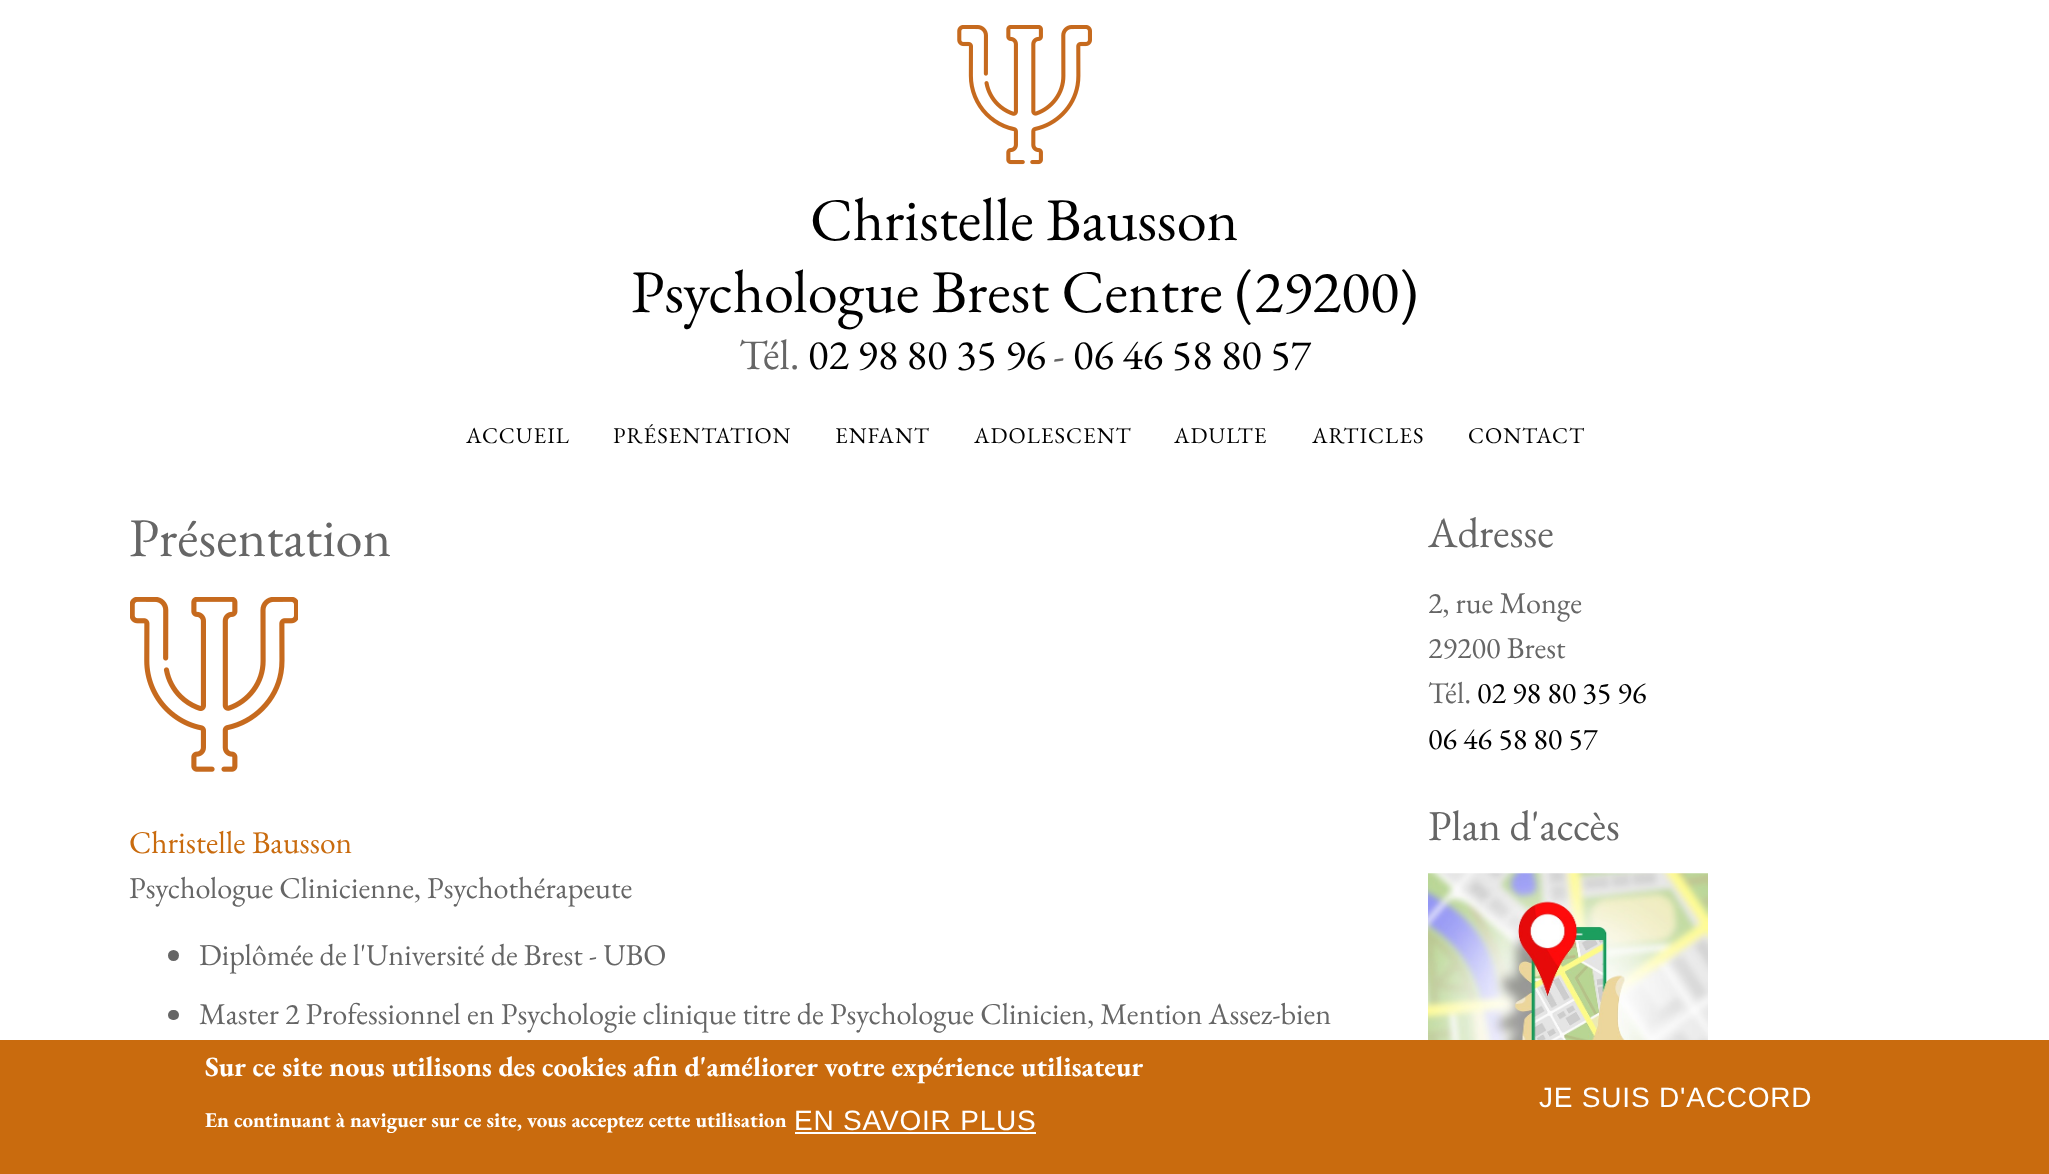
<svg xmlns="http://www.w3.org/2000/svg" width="2049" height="1174">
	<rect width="100%" height="100%" fill="#FFFFFF" />
	<image x="957" y="25" width="135" height="140" href="assets/img1.png" />
	<g font-family="EB Garamond" font-size="60.5" fill="#000000">
		<text x="810" y="240">Christelle Bausson</text>
		<text x="631" y="312">Psychologue Brest Centre (29200)</text>
	</g>
	<text x="739" y="369" font-family="EB Garamond" font-size="42.5" fill="#666666">Tél.</text>
	<text x="808" y="369" font-family="EB Garamond" font-size="42.5" fill="#000000">02 98 80 35 96</text>
	<text x="1053" y="369" font-family="EB Garamond" font-size="42.5" fill="#666666">-</text>
	<text x="1073" y="369" font-family="EB Garamond" font-size="42.5" fill="#000000">06 46 58 80 57</text>
	<g font-family="EB Garamond" font-size="22.5" letter-spacing="1" fill="#000000">
		<text x="466" y="443">ACCUEIL</text>
		<text x="613" y="443">PRÉSENTATION</text>
		<text x="835" y="443">ENFANT</text>
		<text x="974" y="443">ADOLESCENT</text>
		<text x="1174" y="443">ADULTE</text>
		<text x="1312" y="443">ARTICLES</text>
		<text x="1468" y="443">CONTACT</text>
	</g>
	<text x="129" y="556" font-family="EB Garamond" font-size="54.5" fill="#666666">Présentation</text>
	<image x="130" y="597" width="168" height="175" href="assets/img2.png" />
	<text x="129" y="853" font-family="EB Garamond" font-size="31.5" fill="#C96B0E">Christelle Bausson</text>
	<text x="129" y="898" font-family="EB Garamond" font-size="30.25" fill="#666666">Psychologue Clinicienne, Psychothérapeute</text>
	<circle cx="173.5" cy="955.5" r="5.5" fill="#666666" />
	<text x="199" y="965" font-family="EB Garamond" font-size="30.25" fill="#666666">Diplômée de l'Université de Brest - UBO</text>
	<rect x="168" y="1010" width="11" height="10" rx="5" fill="#666666" />
	<text x="199" y="1024" font-family="EB Garamond" font-size="30.25" fill="#666666">Master 2 Professionnel en Psychologie clinique titre de Psychologue Clinicien, Mention Assez-bien</text>
	<text x="1428" y="547" font-family="EB Garamond" font-size="42.5" fill="#666666">Adresse</text>
	<g font-family="EB Garamond" font-size="30.25" fill="#666666">
		<text x="1428" y="613">2, rue Monge</text>
		<text x="1428" y="658">29200 Brest</text>
		<text x="1428" y="703">Tél.</text>
	</g>
	<g font-family="EB Garamond" font-size="30.25" fill="#000000">
		<text x="1477" y="703">02 98 80 35 96</text>
		<text x="1428" y="749">06 46 58 80 57</text>
	</g>
	<text x="1428" y="840" font-family="EB Garamond" font-size="42.5" fill="#666666">Plan d'accès</text>
	<image x="1428" y="873" width="280" height="167" href="assets/img3.png" />
	<rect x="0" y="1040" width="2049" height="134" fill="#C96B0E" />
	<text x="205" y="1076" font-family="EB Garamond" font-size="28" font-weight="700" fill="#FFFFFF">Sur ce site nous utilisons des cookies afin d'améliorer votre expérience utilisateur</text>
	<text x="205" y="1127" font-family="EB Garamond" font-size="21" font-weight="700" fill="#FFFFFF">En continuant à naviguer sur ce site, vous acceptez cette utilisation</text>
	<text x="794" y="1130" font-family="Liberation Sans" font-size="28" letter-spacing="0.8" fill="#FFFFFF">EN SAVOIR PLUS</text>
	<rect x="795" y="1132" width="241" height="2" fill="#FFFFFF" />
	<text x="1539" y="1107" font-family="Liberation Sans" font-size="28" letter-spacing="0.8" fill="#FFFFFF">JE SUIS D'ACCORD</text>
</svg>
